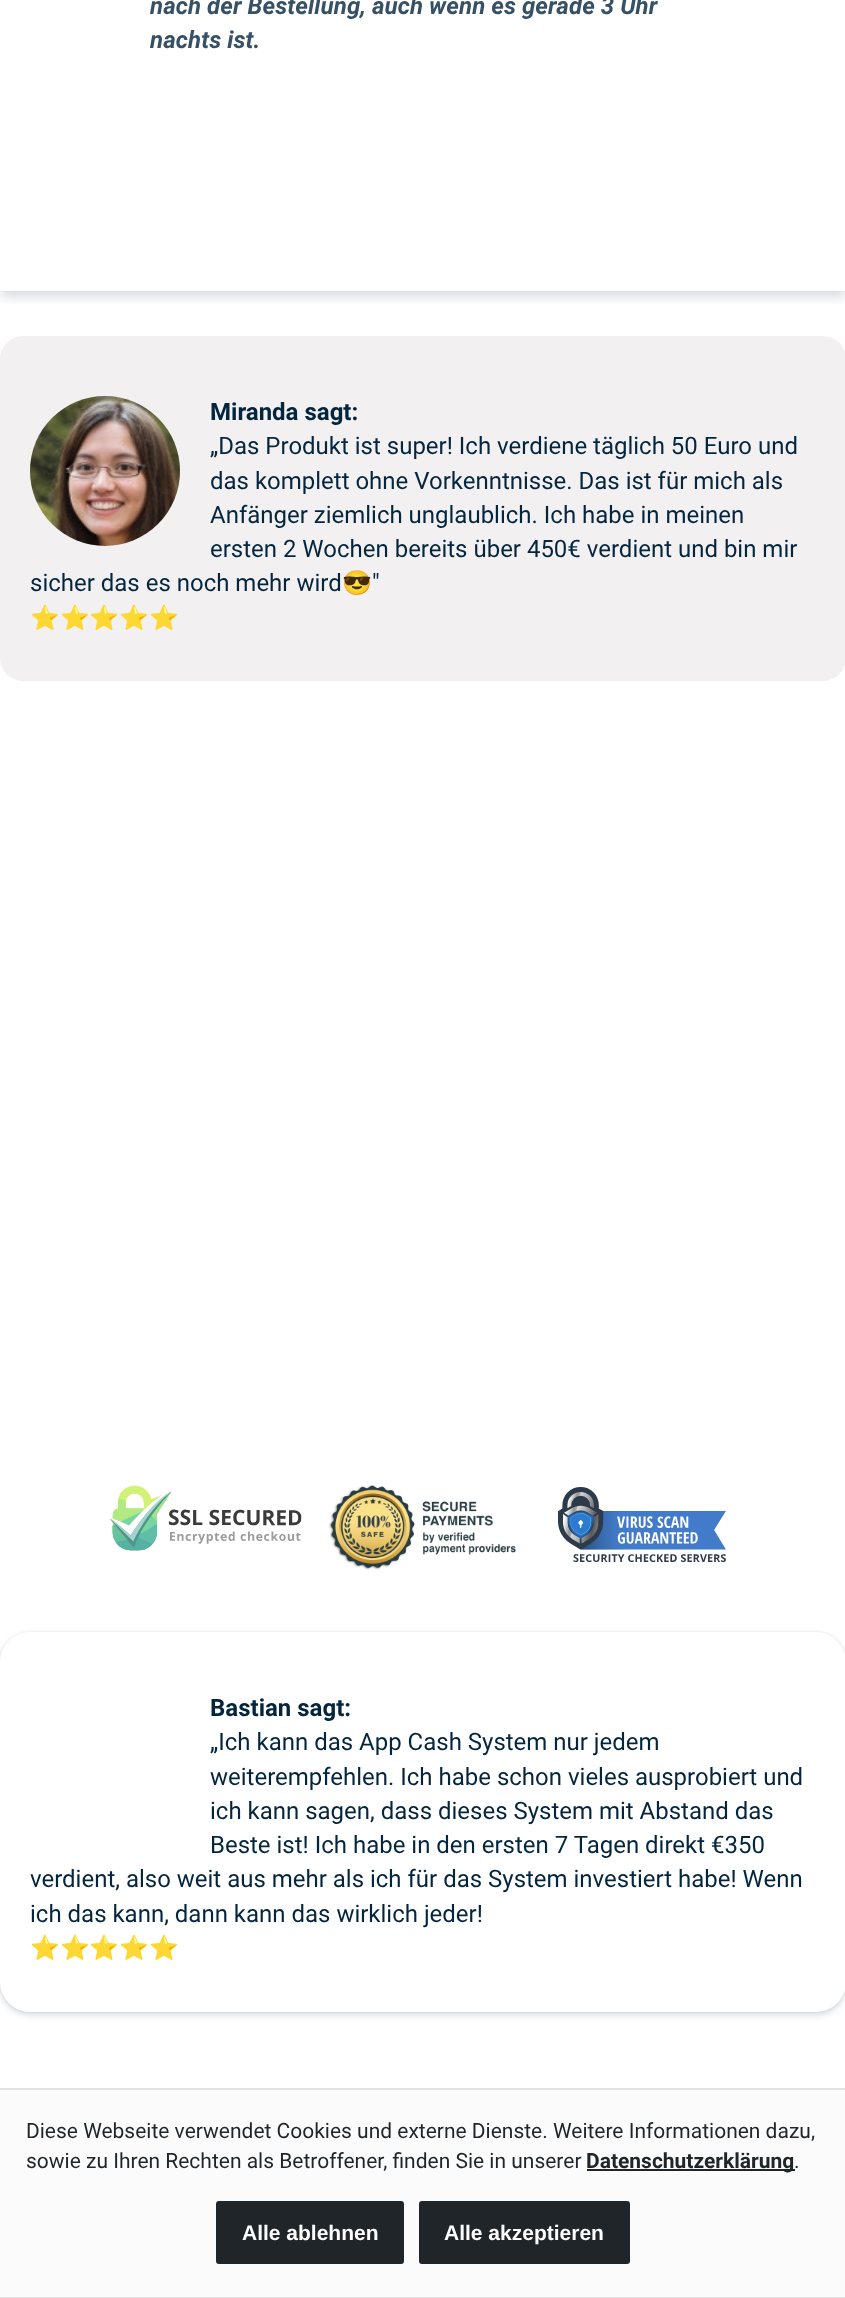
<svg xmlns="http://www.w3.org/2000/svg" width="845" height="2298">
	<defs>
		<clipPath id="clip1"><rect x="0" y="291" width="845" height="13" /></clipPath>
	</defs>
	<rect width="100%" height="100%" fill="#FFFFFF" />
	<g clip-path="url(#clip1)">
		<rect x="0" y="-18" width="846" height="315" fill="#04253E" fill-opacity="0.16" filter="blur(6px)" />
	</g>
	<g font-family="Roboto" font-size="24" font-weight="700" font-style="italic" fill="#365165">
		<text x="150" y="14">nach der Bestellung, auch wenn es gerade 3 Uhr</text>
		<text x="150" y="48">nachts ist.</text>
	</g>
	<rect x="0" y="336" width="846" height="345" rx="23" fill="#F2F0F0" />
	<image x="30" y="396" width="150" height="150" href="assets/img1.png" />
	<text x="210" y="420" font-family="Roboto" font-size="24" font-weight="700" fill="#04253E">Miranda sagt:</text>
	<g font-family="Roboto" font-size="24" fill="#04253E">
		<text x="210" y="454">„Das Produkt ist super! Ich verdiene täglich 50 Euro und</text>
		<text x="210" y="489">das komplett ohne Vorkenntnisse. Das ist für mich als</text>
		<text x="210" y="523">Anfänger ziemlich unglaublich. Ich habe in meinen</text>
		<text x="210" y="557">ersten 2 Wochen bereits über 450€ verdient und bin mir</text>
		<text x="30" y="591">sicher das es noch mehr wird</text>
	</g>
	<text x="342" y="591" font-family="Noto Color Emoji" font-size="24" fill="#04253E">😎</text>
	<text x="372" y="591" font-family="Roboto" font-size="24" fill="#04253E">"</text>
	<text x="30" y="626" font-family="Noto Color Emoji" font-size="24" fill="#04253E">⭐⭐⭐⭐⭐</text>
	<image x="109" y="1485" width="193" height="66" href="assets/img2.png" />
	<image x="328" y="1485" width="188" height="85" href="assets/img3.png" />
	<image x="558" y="1487" width="168" height="75" href="assets/img4.png" />
	<rect x="0" y="1635" width="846" height="380" rx="30" fill="#04253E" fill-opacity="0.16" filter="blur(3px)" />
	<rect x="0" y="1632" width="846" height="380" rx="30" fill="#04253E" fill-opacity="0.08" filter="blur(1px)" />
	<rect x="0" y="1632" width="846" height="380" rx="30" fill="#FFFFFF" />
	<text x="210" y="1716" font-family="Roboto" font-size="24" font-weight="700" fill="#04253E">Bastian sagt:</text>
	<g font-family="Roboto" font-size="24" fill="#04253E">
		<text x="210" y="1750">„Ich kann das App Cash System nur jedem</text>
		<text x="210" y="1785">weiterempfehlen. Ich habe schon vieles ausprobiert und</text>
		<text x="210" y="1819">ich kann sagen, dass dieses System mit Abstand das</text>
		<text x="210" y="1853">Beste ist! Ich habe in den ersten 7 Tagen direkt €350</text>
		<text x="30" y="1887">verdient, also weit aus mehr als ich für das System investiert habe! Wenn</text>
		<text x="30" y="1922">ich das kann, dann kann das wirklich jeder!</text>
	</g>
	<text x="30" y="1956" font-family="Noto Color Emoji" font-size="24" fill="#04253E">⭐⭐⭐⭐⭐</text>
	<rect x="0" y="2090" width="845" height="207" fill="#FBFBFB" />
	<rect x="0" y="2088" width="845" height="2" fill="#E2E2E2" />
	<rect x="0" y="2297" width="845" height="1" fill="#E2E2E2" />
	<g font-family="Roboto" font-size="21" fill="#1F2529">
		<text x="26" y="2138">Diese Webseite verwendet Cookies und externe Dienste. Weitere Informationen dazu,</text>
		<text x="26" y="2168">sowie zu Ihren Rechten als Betroffener, finden Sie in unserer</text>
	</g>
	<rect x="587" y="2169" width="208" height="2" fill="#1F2529" />
	<text x="586" y="2168" font-family="Roboto" font-size="21" font-weight="700" fill="#1F2529">Datenschutzerklärung</text>
	<text x="794" y="2168" font-family="Roboto" font-size="21" fill="#1F2529">.</text>
	<rect x="217" y="2202" width="186" height="61" rx="2" fill="#1F2529" stroke="#1F2529" stroke-width="2" />
	<text x="242" y="2240" font-family="Liberation Sans" font-size="21" font-weight="700" fill="#FFFFFF">Alle ablehnen</text>
	<rect x="420" y="2202" width="209" height="61" rx="2" fill="#1F2529" stroke="#1F2529" stroke-width="2" />
	<text x="444" y="2240" font-family="Liberation Sans" font-size="21" font-weight="700" fill="#FFFFFF">Alle akzeptieren</text>
</svg>
